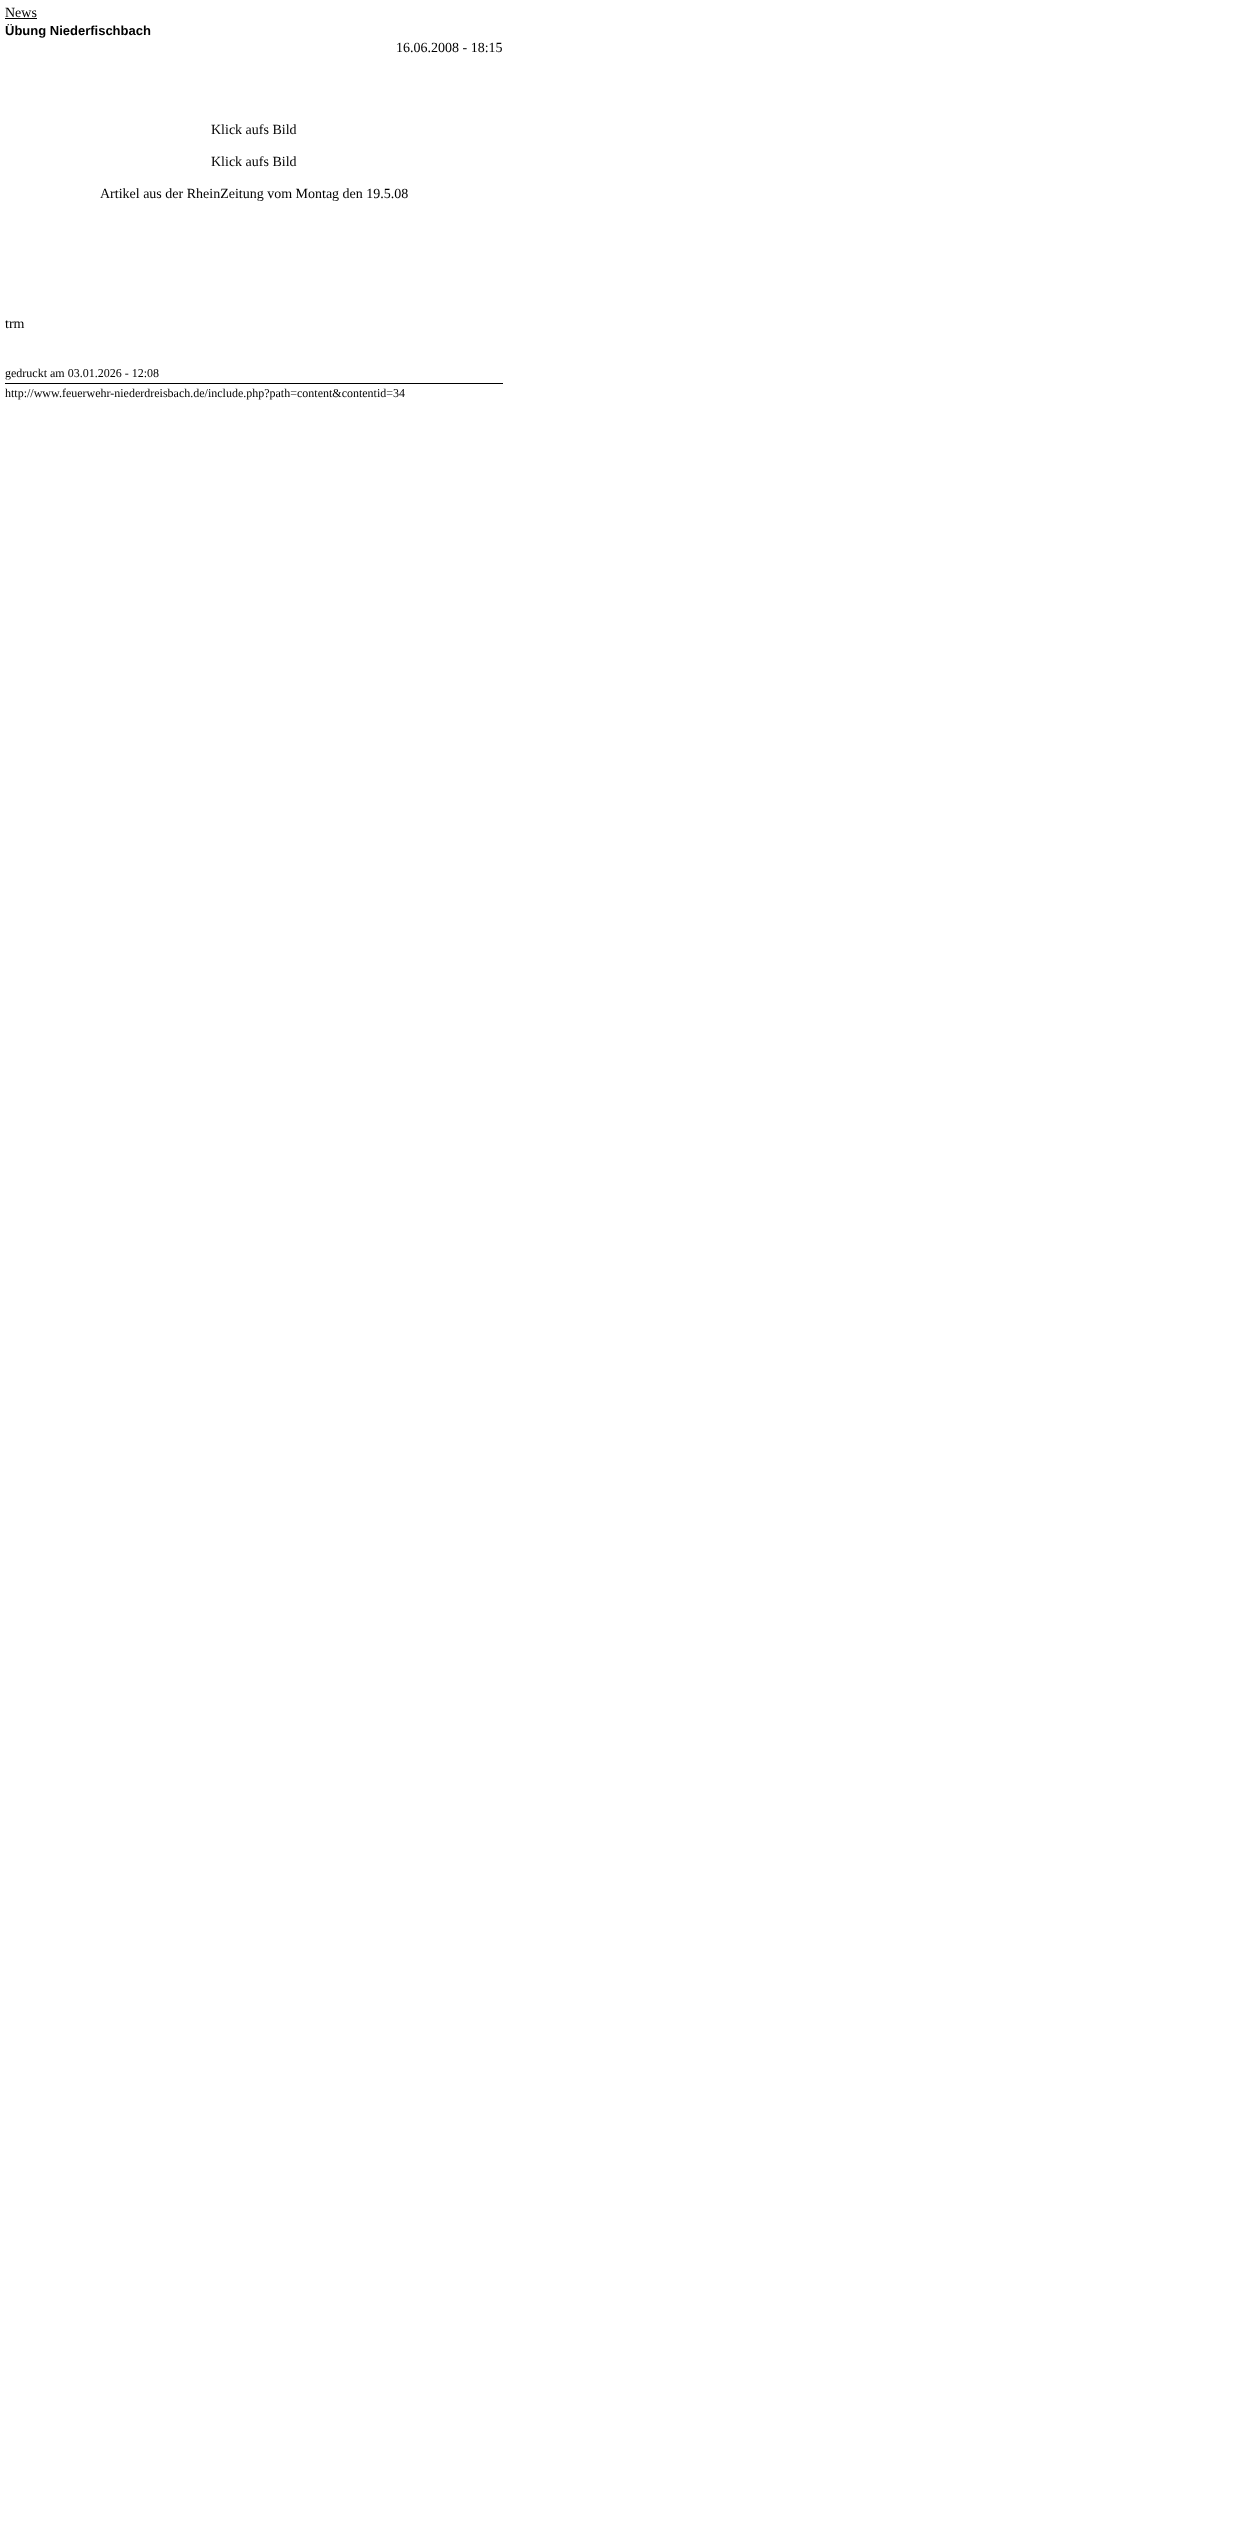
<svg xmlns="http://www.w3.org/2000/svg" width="1258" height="2527">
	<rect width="100%" height="100%" fill="#FFFFFF" />
	<text x="5" y="17" font-family="Liberation Serif" font-size="14" fill="#000000">News</text>
	<rect x="5" y="18" width="32" height="1" fill="#000000" />
	<text x="5" y="35" font-family="Liberation Sans" font-size="13" font-weight="700" fill="#000000">Übung Niederfischbach</text>
	<g font-family="Liberation Serif" font-size="14" fill="#000000">
		<text x="396" y="52">16.06.2008 - 18:15</text>
		<text x="211" y="134">Klick aufs Bild</text>
		<text x="211" y="166">Klick aufs Bild</text>
		<text x="100" y="198">Artikel aus der RheinZeitung vom Montag den 19.5.08</text>
		<text x="5" y="328">trm</text>
	</g>
	<text x="5" y="377" font-family="Liberation Serif" font-size="12" fill="#000000">gedruckt am 03.01.2026 - 12:08</text>
	<rect x="5" y="383" width="498" height="1" fill="#000000" />
	<text x="5" y="397" font-family="Liberation Serif" font-size="12" fill="#000000">http://www.feuerwehr-niederdreisbach.de/include.php?path=content&amp;contentid=34</text>
</svg>
